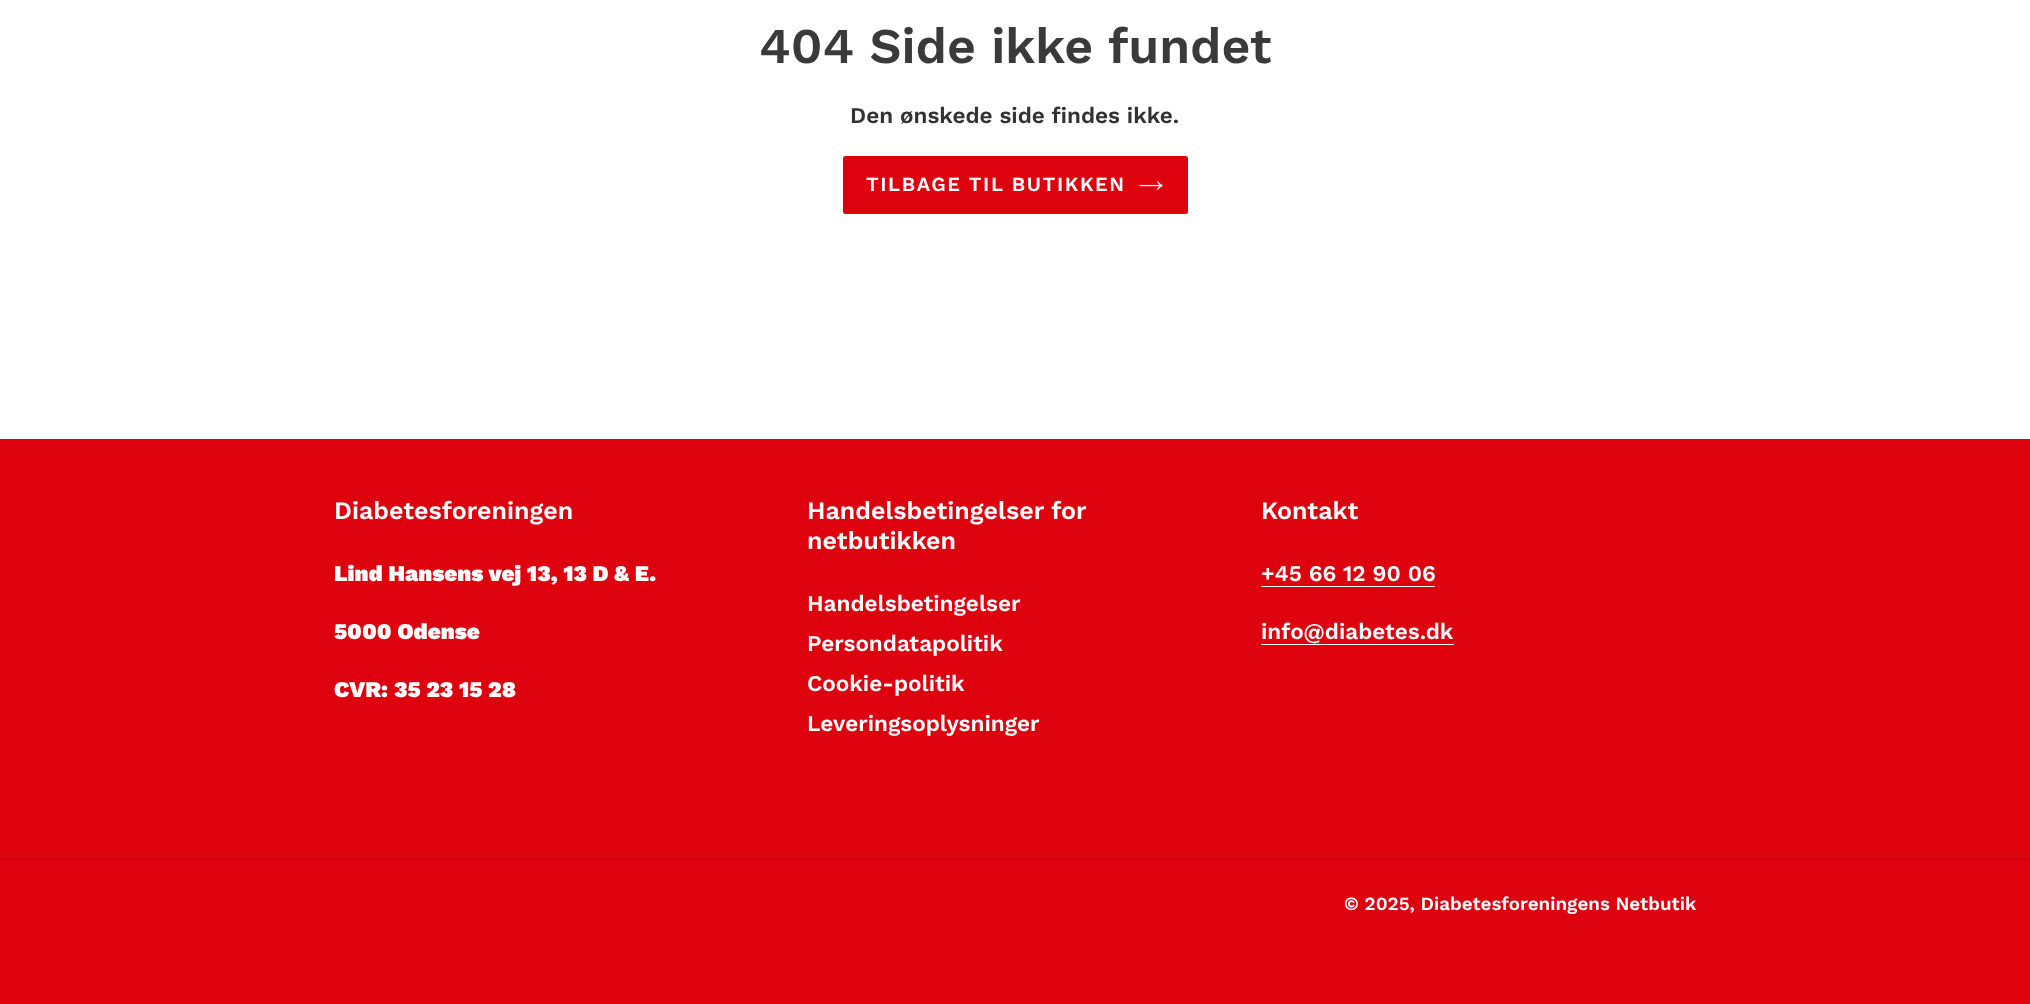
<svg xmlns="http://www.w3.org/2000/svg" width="2030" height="1004">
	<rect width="100%" height="100%" fill="#FFFFFF" />
	<text x="759" y="63" font-family="Work Sans" font-size="50" font-weight="600" fill="#3A3A3A">404 Side ikke fundet</text>
	<text x="850" y="123" font-family="Work Sans" font-size="22.5" font-weight="600" fill="#333232">Den ønskede side findes ikke.</text>
	<rect x="843" y="156" width="345" height="58" rx="2.5" fill="#DD020E" />
	<text x="866" y="191" font-family="Work Sans" font-size="20" font-weight="600" letter-spacing="1.6" fill="#FFFFFF">TILBAGE TIL BUTIKKEN</text>
	<image x="1139" y="181" width="24" height="9" href="assets/img1.png" />
	<rect x="0" y="439" width="2030" height="565" fill="#DD020E" />
	<text x="334" y="519" font-family="Work Sans" font-size="25" font-weight="600" fill="#FFFFFF">Diabetesforeningen</text>
	<g font-family="Work Sans" font-size="22.5" font-weight="900" fill="#FFFFFF">
		<text x="334" y="581">Lind Hansens vej 13, 13 D &amp; E.</text>
		<text x="334" y="639">5000 Odense</text>
		<text x="334" y="697">CVR: 35 23 15 28</text>
	</g>
	<g font-family="Work Sans" font-size="25" font-weight="600" fill="#FFFFFF">
		<text x="807" y="519">Handelsbetingelser for</text>
		<text x="807" y="549">netbutikken</text>
	</g>
	<g font-family="Work Sans" font-size="22.5" font-weight="600" fill="#FFFFFF">
		<text x="807" y="611">Handelsbetingelser</text>
		<text x="807" y="651">Persondatapolitik</text>
		<text x="807" y="691">Cookie-politik</text>
		<text x="807" y="731">Leveringsoplysninger</text>
	</g>
	<text x="1261" y="519" font-family="Work Sans" font-size="25" font-weight="600" fill="#FFFFFF">Kontakt</text>
	<text x="1261" y="581" font-family="Work Sans" font-size="22.5" font-weight="600" fill="#FFFFFF">+45 66 12 90 06</text>
	<rect x="1261" y="586" width="174" height="1" fill="#FFFFFF" />
	<text x="1261" y="639" font-family="Work Sans" font-size="22.5" font-weight="600" fill="#FFFFFF">info@diabetes.dk</text>
	<rect x="1261" y="644" width="193" height="1" fill="#FFFFFF" />
	<rect x="0" y="859" width="2030" height="1" fill="#AA020B" />
	<text x="1344" y="910" font-family="Work Sans" font-size="18.75" font-weight="600" fill="#FFFFFF">© 2025, Diabetesforeningens Netbutik</text>
</svg>
